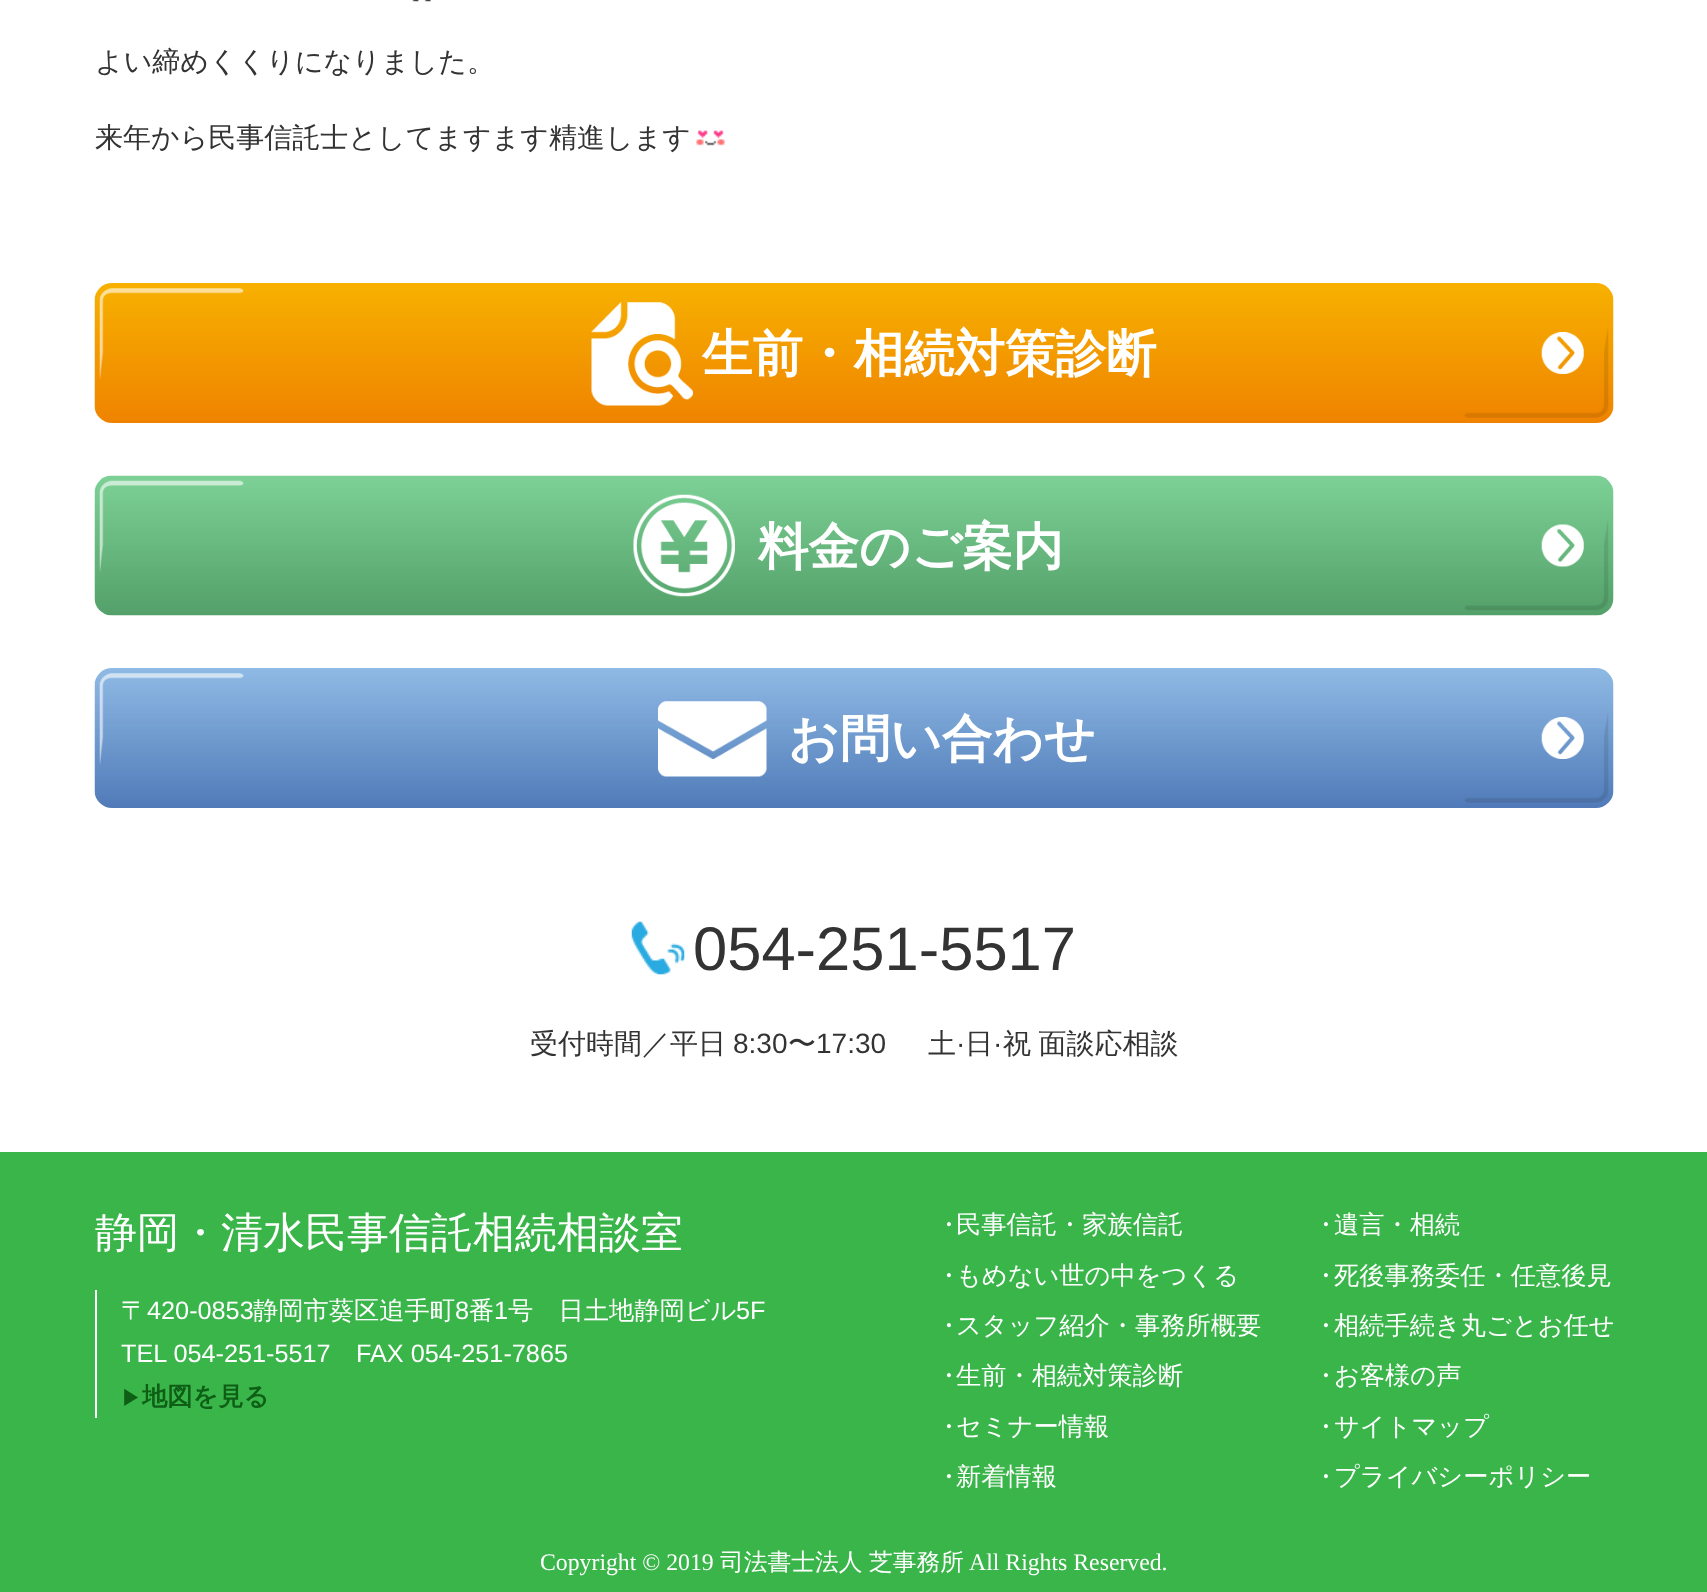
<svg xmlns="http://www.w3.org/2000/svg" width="1707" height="1592">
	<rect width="100%" height="100%" fill="#FFFFFF" />
	<image x="412" y="0" width="19" height="2" href="assets/img1.png" />
	<g font-family="WenQuanYi Zen Hei" font-size="28" font-weight="500" fill="#333333">
		<text x="95" y="71">よい締めくくりになりました。</text>
		<text x="95" y="147">来年から民事信託士としてますます精進します</text>
	</g>
	<image x="696" y="130" width="29" height="16" href="assets/img2.png" />
	<image x="94" y="283" width="1520" height="140" href="assets/img3.png" />
	<text x="702" y="371" font-family="WenQuanYi Zen Hei" font-size="50.5" font-weight="700" fill="#FFFFFF">生前・相続対策診断</text>
	<image x="94" y="475" width="1520" height="141" href="assets/img4.png" />
	<text x="758" y="564" font-family="WenQuanYi Zen Hei" font-size="50.5" font-weight="700" fill="#FFFFFF">料金のご案内</text>
	<image x="94" y="668" width="1520" height="140" href="assets/img5.png" />
	<text x="788" y="756" font-family="WenQuanYi Zen Hei" font-size="50.5" font-weight="700" fill="#FFFFFF">お問い合わせ</text>
	<image x="631" y="921" width="54" height="54" href="assets/img6.png" />
	<text x="693" y="970" font-family="Liberation Sans" font-size="61.5" fill="#333333">054-251-5517</text>
	<text x="530" y="1053" font-family="WenQuanYi Zen Hei" font-size="28" font-weight="500" fill="#333333">受付時間／平日</text>
	<text x="733" y="1053" font-family="Liberation Sans" font-size="28" fill="#333333">8:30</text>
	<text x="788" y="1053" font-family="WenQuanYi Zen Hei" font-size="28" font-weight="500" fill="#333333">〜</text>
	<text x="816" y="1053" font-family="Liberation Sans" font-size="28" fill="#333333">17:30</text>
	<text x="928" y="1053" font-family="WenQuanYi Zen Hei" font-size="28" font-weight="500" fill="#333333">土</text>
	<text x="956" y="1053" font-family="Liberation Sans" font-size="28" fill="#333333">·</text>
	<text x="965" y="1053" font-family="WenQuanYi Zen Hei" font-size="28" font-weight="500" fill="#333333">日</text>
	<text x="993" y="1053" font-family="Liberation Sans" font-size="28" fill="#333333">·</text>
	<text x="1003" y="1053" word-spacing="-1" font-family="WenQuanYi Zen Hei" font-size="28" font-weight="500" fill="#333333">祝 面談応相談</text>
	<rect x="0" y="1152" width="1707" height="440" fill="#39B54A" />
	<text x="95" y="1247" font-family="WenQuanYi Zen Hei" font-size="42" font-weight="500" fill="#FFFFFF">静岡・清水民事信託相続相談室</text>
	<rect x="95" y="1290" width="2" height="128" fill="#FFFFFF" />
	<text x="121" y="1319" font-family="WenQuanYi Zen Hei" font-size="25.25" font-weight="500" fill="#FFFFFF">〒</text>
	<text x="147" y="1319" font-family="Liberation Sans" font-size="25.25" fill="#FFFFFF">420-0853</text>
	<text x="253" y="1319" font-family="WenQuanYi Zen Hei" font-size="25.25" font-weight="500" fill="#FFFFFF">静岡市葵区追手町</text>
	<text x="455" y="1319" font-family="Liberation Sans" font-size="25.25" fill="#FFFFFF">8</text>
	<text x="469" y="1319" font-family="WenQuanYi Zen Hei" font-size="25.25" font-weight="500" fill="#FFFFFF">番</text>
	<text x="494" y="1319" font-family="Liberation Sans" font-size="25.25" fill="#FFFFFF">1</text>
	<text x="508" y="1319" font-family="WenQuanYi Zen Hei" font-size="25.25" font-weight="500" fill="#FFFFFF">号　日土地静岡ビル</text>
	<g font-family="Liberation Sans" font-size="25.25" fill="#FFFFFF">
		<text x="736" y="1319">5F</text>
		<text x="121" y="1362">TEL 054-251-5517</text>
		<text x="356" y="1362">FAX 054-251-7865</text>
	</g>
	<text x="121" y="1405" font-family="WenQuanYi Zen Hei" font-size="20" font-weight="700" fill="#0E5E16">▶︎</text>
	<text x="142" y="1405" font-family="WenQuanYi Zen Hei" font-size="25.25" font-weight="700" fill="#0E5E16">地図を見る</text>
	<g font-family="WenQuanYi Zen Hei" font-size="25.25" font-weight="500" fill="#FFFFFF">
		<text x="936" y="1233">・</text>
		<text x="956" y="1233">民事信託・家族信託</text>
		<text x="936" y="1284">・</text>
		<text x="956" y="1284">もめない世の中をつくる</text>
		<text x="936" y="1334">・</text>
		<text x="956" y="1334">スタッフ紹介・事務所概要</text>
		<text x="936" y="1384">・</text>
		<text x="956" y="1384">生前・相続対策診断</text>
		<text x="936" y="1435">・</text>
		<text x="956" y="1435">セミナー情報</text>
		<text x="936" y="1485">・</text>
		<text x="956" y="1485">新着情報</text>
		<text x="1313" y="1233">・</text>
		<text x="1334" y="1233">遺言・相続</text>
		<text x="1313" y="1284">・</text>
		<text x="1334" y="1284">死後事務委任・任意後見</text>
		<text x="1313" y="1334">・</text>
		<text x="1334" y="1334">相続手続き丸ごとお任せ</text>
		<text x="1313" y="1384">・</text>
		<text x="1334" y="1384">お客様の声</text>
		<text x="1313" y="1435">・</text>
		<text x="1334" y="1435">サイトマップ</text>
		<text x="1313" y="1485">・</text>
		<text x="1334" y="1485">プライバシーポリシー</text>
	</g>
	<text x="540" y="1570" font-family="Liberation Serif" font-size="23.75" fill="#FFFFFF">Copyright © 2019</text>
	<g font-family="WenQuanYi Zen Hei" font-size="23.75" font-weight="500" fill="#FFFFFF">
		<text x="720" y="1570">司法書士法人</text>
		<text x="869" y="1570">芝事務所</text>
	</g>
	<text x="969" y="1570" font-family="Liberation Serif" font-size="23.75" fill="#FFFFFF">All Rights Reserved.</text>
</svg>
